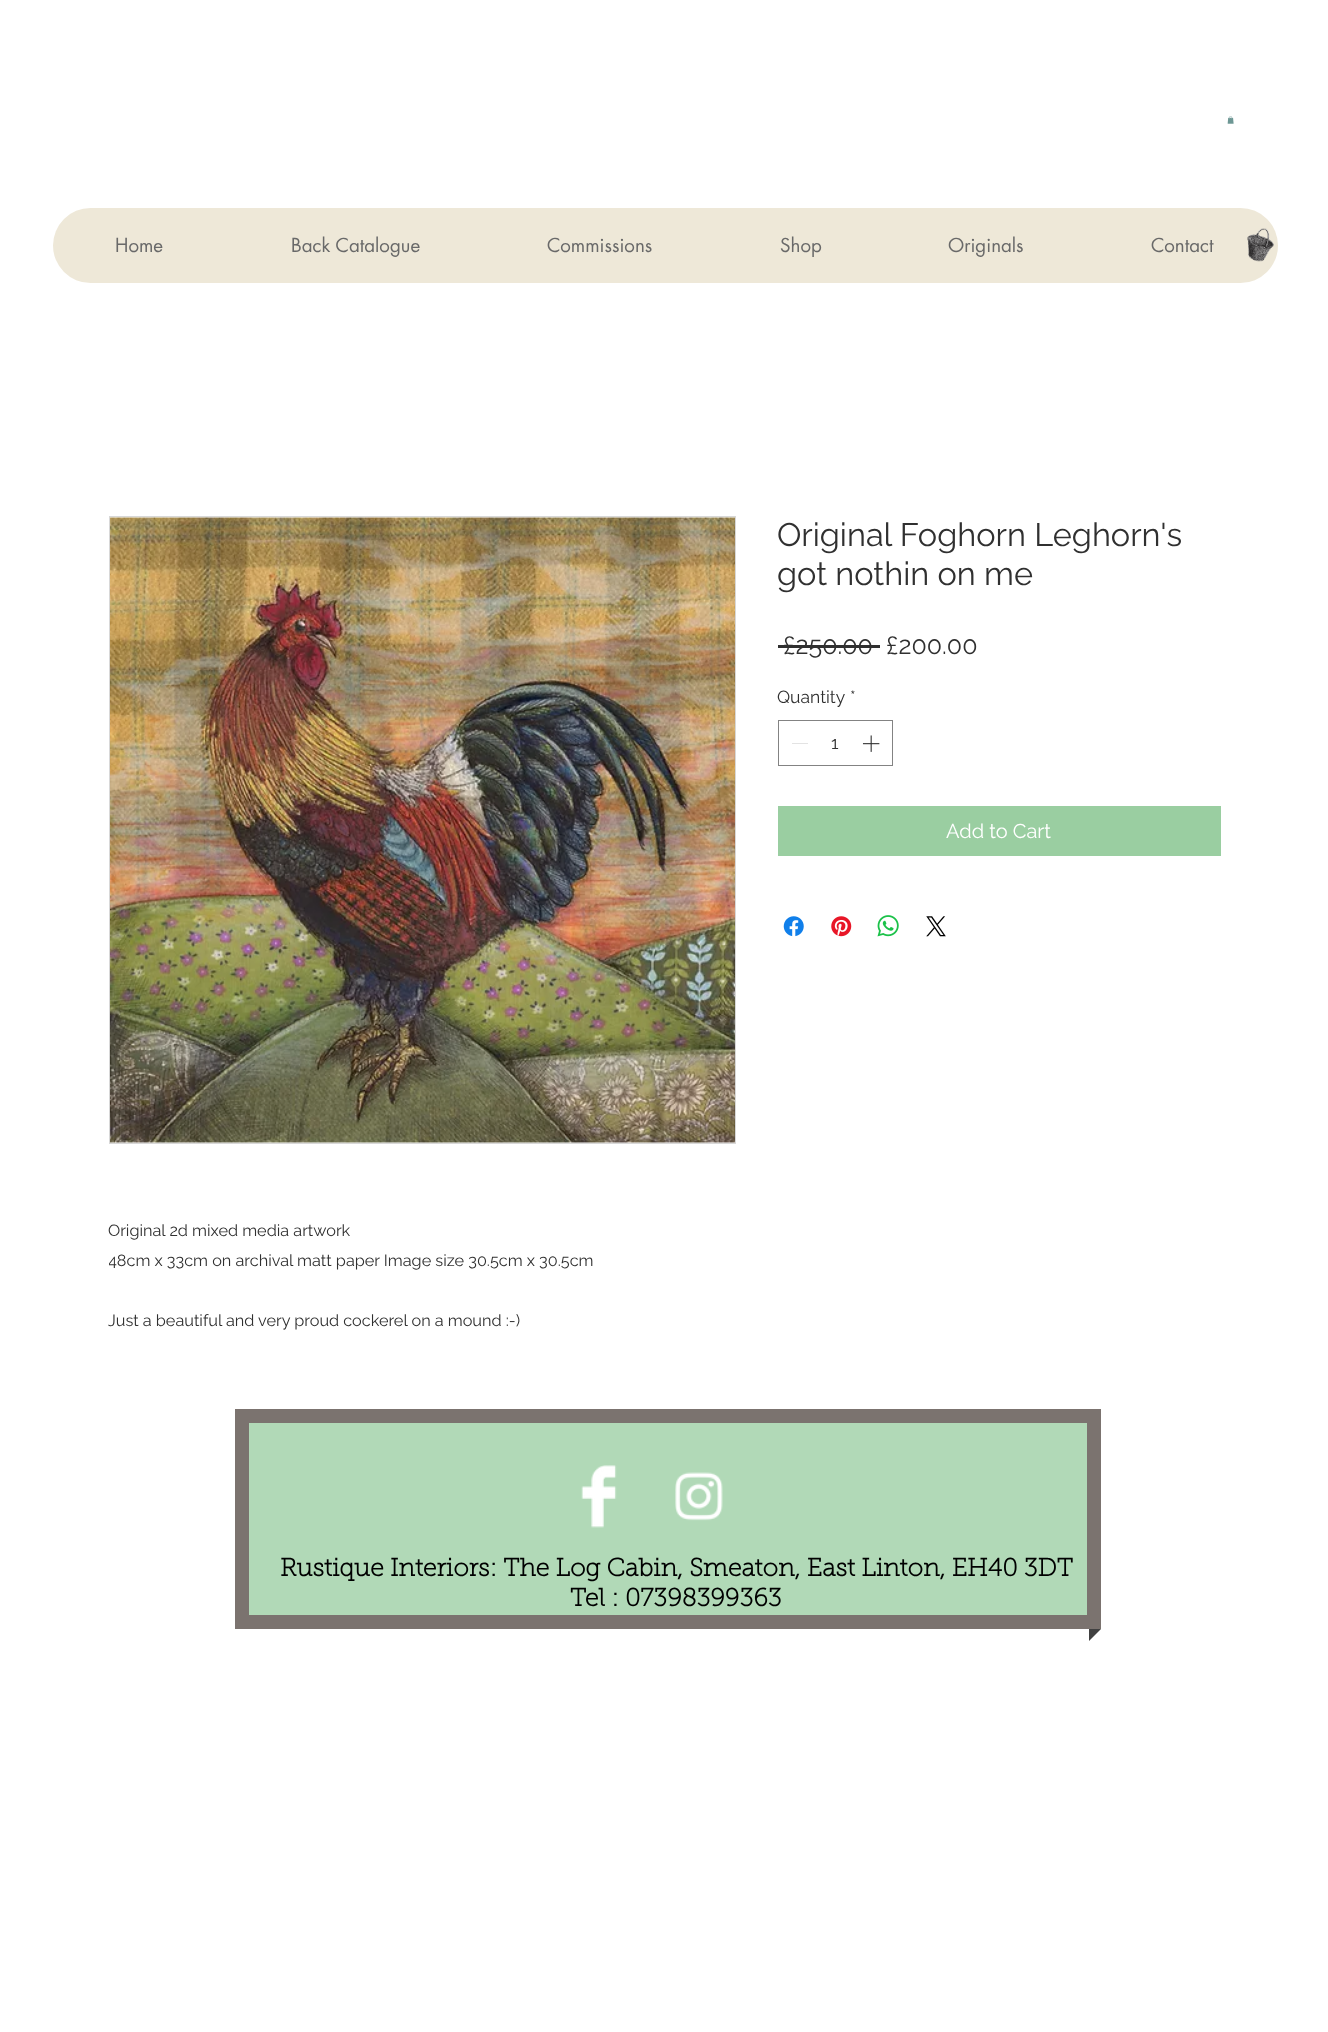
<svg xmlns="http://www.w3.org/2000/svg" width="1328" height="2032">
	<defs>
		<clipPath id="clip1"><rect x="109" y="1216" width="489" height="120" /></clipPath>
	</defs>
	<rect width="100%" height="100%" fill="#FFFFFF" />
	<image x="1227" y="116" width="7" height="8" href="assets/img1.png" />
	<rect x="53" y="208" width="1225" height="75" rx="37.5" fill="#EEE8D8" />
	<g font-family="futura" font-size="18.75" fill="#696969">
		<text x="115" y="252">Home</text>
		<text x="291" y="252">Back Catalogue</text>
		<text x="547" y="252">Commissions</text>
		<text x="780" y="252">Shop</text>
		<text x="948" y="252">Originals</text>
		<text x="1151" y="252">Contact</text>
	</g>
	<image x="1247" y="228" width="27" height="34" href="assets/img2.png" />
	<g font-family="Raleway" font-size="32.5" fill="#303030">
		<text x="777" y="546">Original Foghorn Leghorn's</text>
		<text x="777" y="585">got nothin on me</text>
	</g>
	<text x="783" y="654" font-family="Raleway" font-size="25" fill="#303030">£250.00</text>
	<rect x="778" y="645" width="102" height="3" fill="#303030" />
	<text x="886" y="654" font-family="Raleway" font-size="25" fill="#303030">£200.00</text>
	<g font-family="Raleway" font-size="17.5" fill="#303030">
		<text x="777" y="703">Quantity</text>
		<text x="850" y="703">*</text>
	</g>
	<rect x="778.5" y="720.5" width="114" height="45" fill="none" stroke="#838383" />
	<rect x="792" y="743" width="16" height="1" fill="#E3E3E3" />
	<text x="831" y="749" font-family="Raleway" font-size="17.5" fill="#303030">1</text>
	<image x="862" y="735" width="18" height="17" href="assets/img3.png" />
	<rect x="778" y="806" width="443" height="50" fill="#9ACEA1" />
	<text x="946" y="838" font-family="Raleway" font-size="20" fill="#FFFFFF">Add to Cart</text>
	<image x="783" y="916" width="21" height="21" href="assets/img4.png" />
	<image x="831" y="916" width="21" height="21" href="assets/img5.png" />
	<image x="877" y="915" width="22" height="22" href="assets/img6.png" />
	<image x="926" y="916" width="20" height="21" href="assets/img7.png" />
	<rect x="109.5" y="516.5" width="626" height="627" fill="none" stroke="#D8D8D8" />
	<image x="110" y="517" width="625" height="626" href="assets/img8.png" />
	<text x="108" y="1236" font-family="Raleway" font-size="16.25" fill="#303030">Original 2d mixed media artwork</text>
	<g clip-path="url(#clip1)">
		<text x="108" y="1266" font-family="Raleway" font-size="16.25" fill="#303030">48cm x 33cm on archival matt paper Image size 30.5cm x 30.5cm</text>
	</g>
	<text x="108" y="1326" font-family="Raleway" font-size="16.25" fill="#303030">Just a beautiful and very proud cockerel on a mound :-)</text>
	<rect x="242" y="1416" width="852" height="206" fill="#B1D9B7" stroke="#7B736F" stroke-width="14" />
	<image x="581" y="1465" width="36" height="63" href="assets/img9.png" />
	<image x="675" y="1472" width="48" height="49" href="assets/img10.png" />
	<path d="M1089 1629H1101L1089 1641Z" fill="#414141" />
	<g font-family="'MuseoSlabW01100'" font-size="25" font-weight="700" fill="#000000">
		<text x="280" y="1576">Rustique Interiors: The Log Cabin, Smeaton, East Linton, EH40 3DT</text>
		<text x="570" y="1606">Tel : 07398399363</text>
	</g>
</svg>
